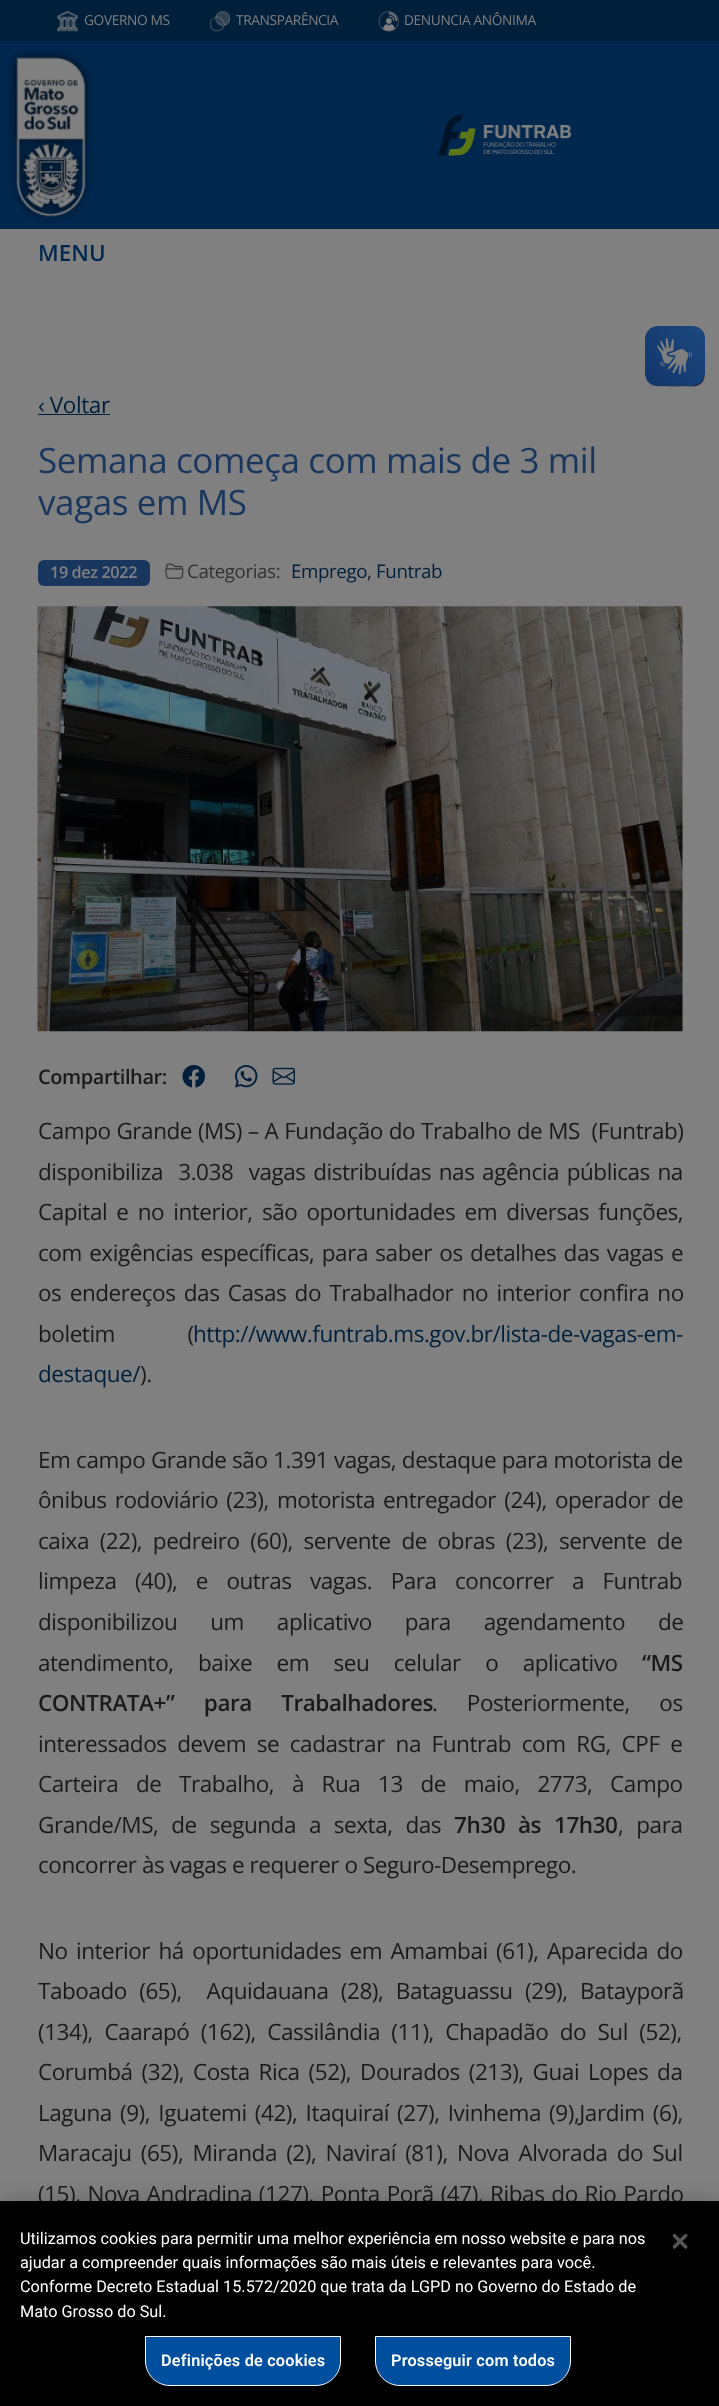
<svg xmlns="http://www.w3.org/2000/svg" width="719" height="2406">
	<rect width="100%" height="100%" fill="#808080" />
	<rect x="0" y="0" width="719" height="41" fill="#001F3B" />
	<image x="57" y="11" width="21" height="21" href="assets/img1.png" />
	<text x="84" y="25" font-family="Open Sans" font-size="13.75" letter-spacing="-0.4" fill="#808080">GOVERNO MS</text>
	<image x="210" y="11" width="20" height="21" href="assets/img2.png" />
	<text x="236" y="25" font-family="Open Sans" font-size="13.75" letter-spacing="-0.4" fill="#808080">TRANSPARÊNCIA</text>
	<image x="378" y="11" width="21" height="21" href="assets/img3.png" />
	<text x="404" y="25" font-family="Open Sans" font-size="13.75" letter-spacing="-0.4" fill="#808080">DENUNCIA ANÔNIMA</text>
	<rect x="0" y="41" width="719" height="188" fill="#00284F" />
	<image x="7" y="49" width="87" height="175" href="assets/img4.png" />
	<image x="438" y="114" width="134" height="42" href="assets/img5.png" />
	<text x="38" y="261" font-family="Open Sans" font-size="22.5" font-weight="600" fill="#00284F">MENU</text>
	<image x="645" y="326" width="60" height="61" href="assets/img6.png" />
	<image x="645" y="326" width="60" height="60" href="assets/img7.png" />
	<text x="38" y="413" font-family="Open Sans" font-size="22.5" letter-spacing="-0.4" fill="#001F3B">‹ Voltar</text>
	<rect x="38" y="414" width="72" height="1" fill="#001F3B" />
	<g font-family="Open Sans" font-size="35" letter-spacing="-0.4" fill="#19365F">
		<text x="38" y="473">Semana começa com mais de 3 mil</text>
		<text x="38" y="515">vagas em MS</text>
	</g>
	<rect x="38" y="560" width="112" height="26" rx="6" fill="#19365F" />
	<text x="50" y="578" font-family="Open Sans" font-size="16.25" font-weight="600" letter-spacing="-0.4" fill="#808080">19 dez 2022</text>
	<image x="165" y="563" width="19" height="16" href="assets/img8.png" />
	<text x="187" y="578" font-family="Open Sans" font-size="18.75" letter-spacing="-0.4" fill="#323232">Categorias:</text>
	<text x="291" y="578" font-family="Open Sans" font-size="18.75" letter-spacing="-0.4" fill="#001F3B">Emprego</text>
	<text x="367" y="578" font-family="Open Sans" font-size="18.75" letter-spacing="-0.4" fill="#1A1A1A">,</text>
	<text x="376" y="578" font-family="Open Sans" font-size="18.75" letter-spacing="-0.4" fill="#001F3B">Funtrab</text>
	<image x="37" y="606" width="646" height="426" href="assets/img9.png" />
	<text x="38" y="1084" font-family="Open Sans" font-size="20" font-weight="600" letter-spacing="-0.4" fill="#1A1A1A">Compartilhar:</text>
	<image x="182" y="1065" width="23" height="23" href="assets/img10.png" />
	<image x="235" y="1065" width="23" height="23" href="assets/img11.png" />
	<image x="272" y="1067" width="23" height="18" href="assets/img12.png" />
	<g font-family="Open Sans" font-size="22.5" letter-spacing="-0.45" fill="#1A1A1A">
		<text x="38" y="1139" word-spacing="0.5" xml:space="preserve">Campo Grande (MS) – A Fundação do Trabalho de MS  (Funtrab)</text>
		<text x="38" y="1180" word-spacing="2.25" xml:space="preserve">disponibiliza  3.038  vagas distribuídas nas agência públicas na</text>
		<text x="38" y="1220" word-spacing="3.75">Capital e no interior, são oportunidades em diversas funções,</text>
		<text x="38" y="1261" word-spacing="2">com exigências específicas, para saber os detalhes das vagas e</text>
		<text x="38" y="1301" word-spacing="3">os endereços das Casas do Trabalhador no interior confira no</text>
		<text x="38" y="1342" word-spacing="67">boletim (</text>
	</g>
	<g font-family="Open Sans" font-size="22.5" letter-spacing="-0.45" fill="#001F3B">
		<text x="193" y="1342">http://www.funtrab.ms.gov.br/lista-de-vagas-em-</text>
		<text x="38" y="1382">destaque/</text>
	</g>
	<g font-family="Open Sans" font-size="22.5" letter-spacing="-0.45" fill="#1A1A1A">
		<text x="140" y="1382">).</text>
		<text x="38" y="1468" word-spacing="0.25">Em campo Grande são 1.391 vagas, destaque para motorista de</text>
		<text x="38" y="1508" word-spacing="2.75">ônibus rodoviário (23), motorista entregador (24), operador de</text>
		<text x="38" y="1549" word-spacing="5.25">caixa (22), pedreiro (60), servente de obras (23), servente de</text>
		<text x="38" y="1589" word-spacing="13">limpeza (40), e outras vagas. Para concorrer a Funtrab</text>
		<text x="38" y="1630" word-spacing="27.5">disponibilizou um aplicativo para agendamento de</text>
		<text x="38" y="1671" word-spacing="19">atendimento, baixe em seu celular o aplicativo</text>
	</g>
	<g font-family="Open Sans" font-size="22.5" font-weight="600" letter-spacing="-0.45" fill="#1A1A1A">
		<text x="642" y="1671">“MS</text>
		<text x="38" y="1711" word-spacing="24">CONTRATA+” para Trabalhadores</text>
	</g>
	<g font-family="Open Sans" font-size="22.5" letter-spacing="-0.45" fill="#1A1A1A">
		<text x="432" y="1711" word-spacing="24">. Posteriormente, os</text>
		<text x="38" y="1752" word-spacing="5.25">interessados devem se cadastrar na Funtrab com RG, CPF e</text>
		<text x="38" y="1792" word-spacing="12.25">Carteira de Trabalho, à Rua 13 de maio, 2773, Campo</text>
		<text x="38" y="1833" word-spacing="7.5">Grande/MS, de segunda a sexta, das</text>
	</g>
	<text x="454" y="1833" word-spacing="7.5" font-family="Open Sans" font-size="22.5" font-weight="600" letter-spacing="-0.45" fill="#1A1A1A">7h30 às 17h30</text>
	<g font-family="Open Sans" font-size="22.5" letter-spacing="-0.45" fill="#1A1A1A">
		<text x="618" y="1833" word-spacing="7.5">, para</text>
		<text x="38" y="1873">concorrer às vagas e requerer o Seguro-Desemprego.</text>
		<text x="38" y="1959" word-spacing="3">No interior há oportunidades em Amambai (61), Aparecida do</text>
		<text x="38" y="1999" word-spacing="7" xml:space="preserve">Taboado (65),  Aquidauana (28), Bataguassu (29), Batayporã</text>
		<text x="38" y="2040" word-spacing="6">(134), Caarapó (162), Cassilândia (11), Chapadão do Sul (52),</text>
		<text x="38" y="2080" word-spacing="3.5">Corumbá (32), Costa Rica (52), Dourados (213), Guai Lopes da</text>
		<text x="38" y="2121" word-spacing="2.75">Laguna (9), Iguatemi (42), Itaquiraí (27), Ivinhema (9),Jardim (6),</text>
		<text x="38" y="2161" word-spacing="3.75">Maracaju (65), Miranda (2), Naviraí (81), Nova Alvorada do Sul</text>
		<text x="38" y="2202" word-spacing="1.5">(15), Nova Andradina (127), Ponta Porã (47), Ribas do Rio Pardo</text>
	</g>
	<rect x="0" y="2201" width="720" height="205" fill="#000000" fill-opacity="0.2" filter="blur(11px)" />
	<rect x="0" y="2201" width="719" height="205" fill="#000000" />
	<g font-family="Roboto" font-size="16.25" fill="#FFFFFF">
		<text x="20" y="2244">Utilizamos cookies para permitir uma melhor experiência em nosso website e para nos</text>
		<text x="20" y="2268">ajudar a compreender quais informações são mais úteis e relevantes para você.</text>
		<text x="20" y="2292">Conforme Decreto Estadual 15.572/2020 que trata da LGPD no Governo do Estado de</text>
		<text x="20" y="2317">Mato Grosso do Sul.</text>
	</g>
	<path d="M145.5 2336.5H340.5V2361C340.5 2374.5 329.5 2385.5 316 2385.5H170C156.5 2385.5 145.5 2374.5 145.5 2361Z" fill="#004F9F" stroke="#FFFFFF" />
	<text x="161" y="2366" font-family="Roboto" font-size="16.25" font-weight="600" letter-spacing="0.2" fill="#FFFFFF">Definições de cookies</text>
	<path d="M375.5 2336.5H570.5V2361C570.5 2374.5 559.5 2385.5 546 2385.5H400C386.5 2385.5 375.5 2374.5 375.5 2361Z" fill="#004F9F" stroke="#FFFFFF" />
	<text x="391" y="2366" font-family="Roboto" font-size="16.25" font-weight="600" letter-spacing="0.2" fill="#FFFFFF">Prosseguir com todos</text>
	<image x="673" y="2234" width="15" height="15" href="assets/img13.png" />
</svg>
